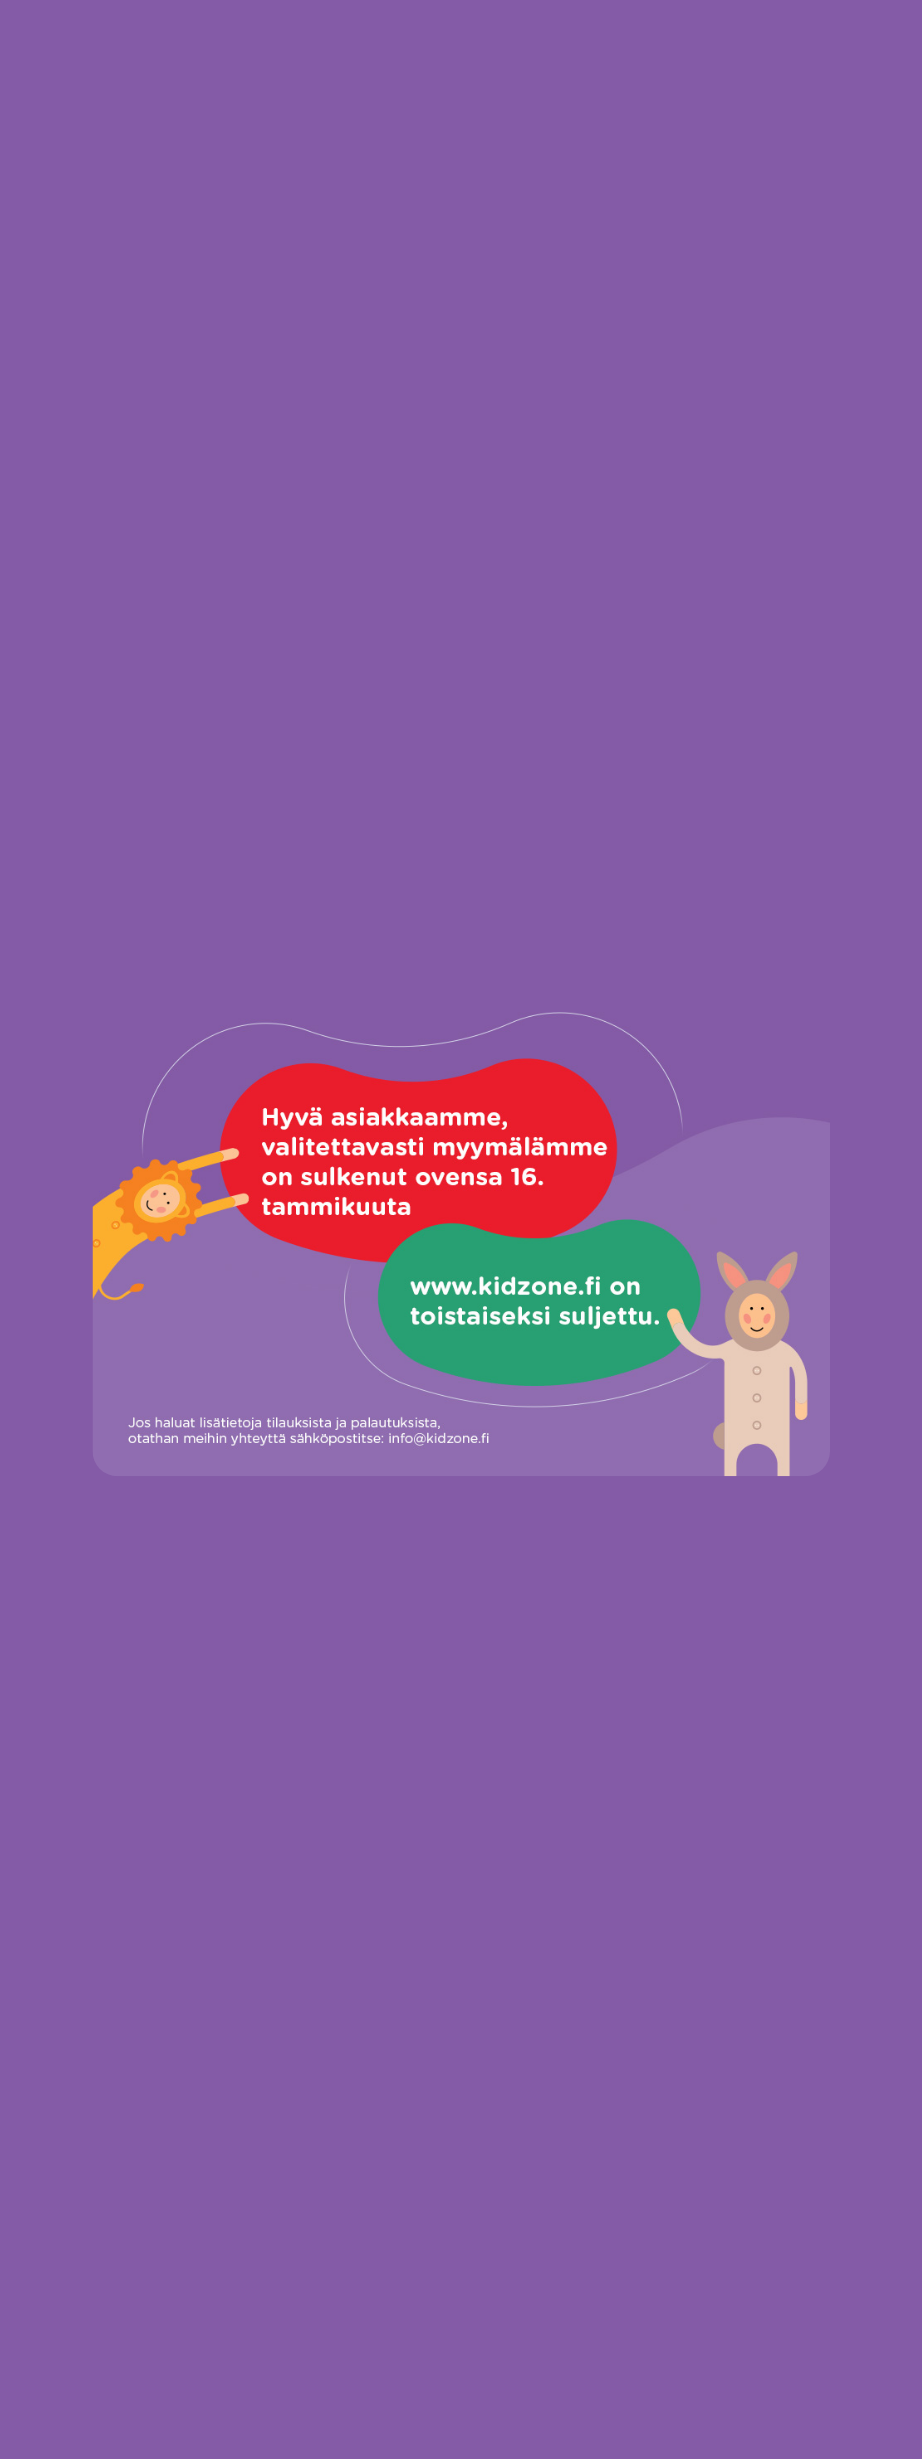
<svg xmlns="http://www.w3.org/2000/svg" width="922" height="2459">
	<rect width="100%" height="100%" fill="#845BA7" />
	<image x="92" y="1012" width="738" height="465" href="assets/img1.png" />
</svg>
